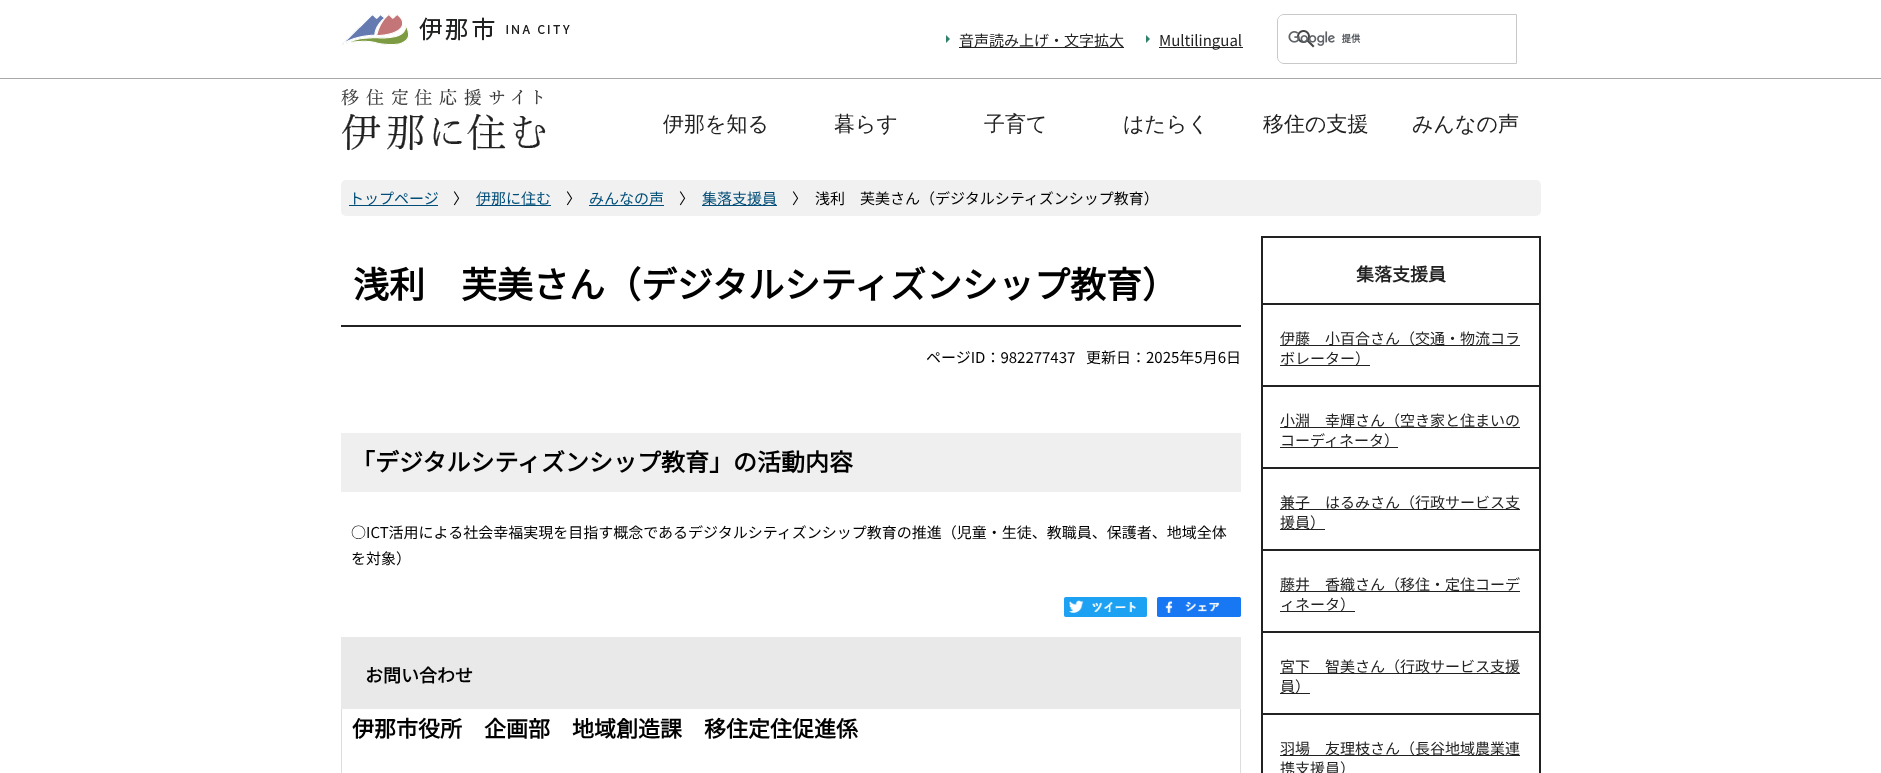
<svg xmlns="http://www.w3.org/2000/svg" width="1881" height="773">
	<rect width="100%" height="100%" fill="#FFFFFF" />
	<rect x="0" y="78" width="1881" height="1" fill="#A9A9A9" />
	<image x="342" y="14" width="228" height="31" href="assets/img1.png" />
	<path d="M946 43V35L950 39Z" fill="#2E8068" />
	<rect x="959" y="47" width="165" height="1" fill="#222222" />
	<text x="959" y="46" font-family="Noto Sans JP" font-size="15" font-weight="100" fill="#222222">音声読み上げ・文字拡大</text>
	<path d="M1146 43V35L1150 39Z" fill="#2E8068" />
	<rect x="1159" y="47" width="84" height="1" fill="#222222" />
	<text x="1159" y="46" font-family="Noto Sans JP" font-size="15" font-weight="100" fill="#222222">Multilingual</text>
	<path d="M1284 14.5H1516.5V63.5H1284C1280.5 63.5 1277.5 60.5 1277.5 57V21C1277.5 17.5 1280.5 14.5 1284 14.5Z" fill="none" stroke="#C9C9C9" />
	<image x="1297" y="30" width="18" height="18" href="assets/img2.png" />
	<image x="1288" y="31" width="73" height="15" href="assets/img3.png" />
	<image x="341" y="88" width="205" height="63" href="assets/img4.png" />
	<g font-family="WenQuanYi Zen Hei" font-size="21" font-weight="500" fill="#222222">
		<text x="663" y="131">伊那を知る</text>
		<text x="834" y="131">暮らす</text>
		<text x="984" y="131">子育て</text>
		<text x="1123" y="131">はたらく</text>
		<text x="1263" y="131">移住の支援</text>
		<text x="1412" y="131">みんなの声</text>
	</g>
	<rect x="341" y="180" width="1200" height="36" rx="5" fill="#F1F1F1" />
	<rect x="349" y="205" width="89" height="1" fill="#004D77" />
	<text x="349" y="204" font-family="Noto Sans JP" font-size="15" font-weight="100" fill="#004D77">トップページ</text>
	<text x="453" y="204" font-family="Noto Sans JP" font-size="15" font-weight="100" fill="#000000">〉</text>
	<rect x="476" y="205" width="75" height="1" fill="#004D77" />
	<text x="476" y="204" font-family="Noto Sans JP" font-size="15" font-weight="100" fill="#004D77">伊那に住む</text>
	<text x="566" y="204" font-family="Noto Sans JP" font-size="15" font-weight="100" fill="#000000">〉</text>
	<rect x="589" y="205" width="75" height="1" fill="#004D77" />
	<text x="589" y="204" font-family="Noto Sans JP" font-size="15" font-weight="100" fill="#004D77">みんなの声</text>
	<text x="679" y="204" font-family="Noto Sans JP" font-size="15" font-weight="100" fill="#000000">〉</text>
	<rect x="702" y="205" width="75" height="1" fill="#004D77" />
	<text x="702" y="204" font-family="Noto Sans JP" font-size="15" font-weight="100" fill="#004D77">集落支援員</text>
	<g font-family="Noto Sans JP" font-size="15" font-weight="100" fill="#000000">
		<text x="792" y="204">〉</text>
		<text x="815" y="204">浅利　芙美さん（デジタルシティズンシップ教育）</text>
	</g>
	<rect x="341" y="325" width="900" height="2" fill="#222222" />
	<text x="353" y="298" font-family="Noto Sans JP" font-size="36" font-weight="700" fill="#000000">浅利　芙美さん（デジタルシティズンシップ教育）</text>
	<g font-family="Noto Sans JP" font-size="15" font-weight="100" fill="#000000">
		<text x="926" y="363">ページID：982277437</text>
		<text x="1086" y="363">更新日：2025年5月6日</text>
	</g>
	<rect x="341" y="433" width="900" height="59" fill="#EFEFEF" />
	<text x="351" y="471" font-family="Noto Sans JP" font-size="24" font-weight="700" fill="#000000">「デジタルシティズンシップ教育」の活動内容</text>
	<g font-family="Noto Sans JP" font-size="15" font-weight="100" fill="#000000">
		<text x="351" y="538">○ICT活用による社会幸福実現を目指す概念であるデジタルシティズンシップ教育の推進（児童・生徒、教職員、保護者、地域全体</text>
		<text x="351" y="564">を対象）</text>
	</g>
	<image x="1064" y="597" width="83" height="20" href="assets/img5.png" />
	<image x="1157" y="597" width="84" height="20" href="assets/img6.png" />
	<rect x="341" y="637" width="900" height="72" fill="#E9E9E9" />
	<text x="365" y="682" font-family="Noto Sans JP" font-size="18" font-weight="700" fill="#000000">お問い合わせ</text>
	<rect x="1240" y="709" width="1" height="64" fill="#DDDDDD" />
	<rect x="341" y="709" width="1" height="64" fill="#DDDDDD" />
	<text x="352" y="737" font-family="Noto Sans JP" font-size="22" font-weight="700" fill="#000000">伊那市役所　企画部　地域創造課　移住定住促進係</text>
	<rect x="1262" y="237" width="278" height="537" fill="none" stroke="#222222" stroke-width="2" />
	<text x="1356" y="281" font-family="Noto Sans JP" font-size="18" font-weight="700" fill="#222222">集落支援員</text>
	<rect x="1263" y="303" width="276" height="2" fill="#222222" />
	<rect x="1280" y="345" width="240" height="1" fill="#222222" />
	<text x="1280" y="344" font-family="Noto Sans JP" font-size="15" font-weight="100" fill="#222222">伊藤　小百合さん（交通・物流コラ</text>
	<rect x="1280" y="365" width="90" height="1" fill="#222222" />
	<text x="1280" y="364" font-family="Noto Sans JP" font-size="15" font-weight="100" fill="#222222">ボレーター）</text>
	<rect x="1263" y="385" width="276" height="2" fill="#222222" />
	<rect x="1280" y="427" width="240" height="1" fill="#222222" />
	<text x="1280" y="426" font-family="Noto Sans JP" font-size="15" font-weight="100" fill="#222222">小淵　幸輝さん（空き家と住まいの</text>
	<rect x="1280" y="447" width="118" height="1" fill="#222222" />
	<text x="1280" y="446" font-family="Noto Sans JP" font-size="15" font-weight="100" fill="#222222">コーディネータ）</text>
	<rect x="1263" y="467" width="276" height="2" fill="#222222" />
	<rect x="1280" y="509" width="240" height="1" fill="#222222" />
	<text x="1280" y="508" font-family="Noto Sans JP" font-size="15" font-weight="100" fill="#222222">兼子　はるみさん（行政サービス支</text>
	<rect x="1280" y="529" width="45" height="1" fill="#222222" />
	<text x="1280" y="528" font-family="Noto Sans JP" font-size="15" font-weight="100" fill="#222222">援員）</text>
	<rect x="1263" y="549" width="276" height="2" fill="#222222" />
	<rect x="1280" y="591" width="240" height="1" fill="#222222" />
	<text x="1280" y="590" font-family="Noto Sans JP" font-size="15" font-weight="100" fill="#222222">藤井　香織さん（移住・定住コーデ</text>
	<rect x="1280" y="611" width="75" height="1" fill="#222222" />
	<text x="1280" y="610" font-family="Noto Sans JP" font-size="15" font-weight="100" fill="#222222">ィネータ）</text>
	<rect x="1263" y="631" width="276" height="2" fill="#222222" />
	<rect x="1280" y="673" width="240" height="1" fill="#222222" />
	<text x="1280" y="672" font-family="Noto Sans JP" font-size="15" font-weight="100" fill="#222222">宮下　智美さん（行政サービス支援</text>
	<rect x="1280" y="693" width="30" height="1" fill="#222222" />
	<text x="1280" y="692" font-family="Noto Sans JP" font-size="15" font-weight="100" fill="#222222">員）</text>
	<rect x="1263" y="713" width="276" height="2" fill="#222222" />
	<rect x="1280" y="755" width="240" height="1" fill="#222222" />
	<g font-family="Noto Sans JP" font-size="15" font-weight="100" fill="#222222">
		<text x="1280" y="754">羽場　友理枝さん（長谷地域農業連</text>
		<text x="1280" y="774">携支援員）</text>
	</g>
</svg>
